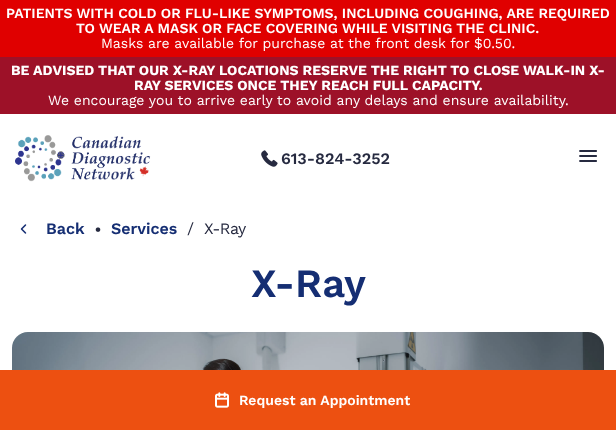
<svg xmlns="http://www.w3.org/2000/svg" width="616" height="430">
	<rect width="100%" height="100%" fill="#FFFFFF" />
	<rect x="0" y="0" width="616" height="57" fill="#E00000" />
	<g font-family="Work Sans" font-size="14" font-weight="600" fill="#FFFFFF">
		<text x="6" y="18">PATIENTS WITH COLD OR FLU-LIKE SYMPTOMS, INCLUDING COUGHING, ARE REQUIRED</text>
		<text x="76" y="33">TO WEAR A MASK OR FACE COVERING WHILE VISITING THE CLINIC.</text>
	</g>
	<text x="101" y="48" font-family="Work Sans" font-size="14" fill="#FFFFFF">Masks are available for purchase at the front desk for $0.50.</text>
	<rect x="0" y="57" width="616" height="57" fill="#9D1128" />
	<g font-family="Work Sans" font-size="14" font-weight="700" fill="#FFFFFF">
		<text x="11" y="75">BE ADVISED THAT OUR X-RAY LOCATIONS RESERVE THE RIGHT TO CLOSE WALK-IN X-</text>
		<text x="134" y="90">RAY SERVICES ONCE THEY REACH FULL CAPACITY.</text>
	</g>
	<text x="48" y="105" font-family="Work Sans" font-size="14" fill="#FFFFFF">We encourage you to arrive early to avoid any delays and ensure availability.</text>
	<image x="15" y="135" width="136" height="47" href="assets/img1.png" />
	<image x="261" y="150" width="17" height="17" href="assets/img2.png" />
	<text x="281" y="164" font-family="Work Sans" font-size="16" font-weight="600" fill="#262A40">613-824-3252</text>
	<image x="579" y="150" width="18" height="12" href="assets/img3.png" />
	<rect x="0" y="370" width="616" height="60" fill="#ED5011" />
	<image x="215" y="392" width="14" height="16" href="assets/img4.png" />
	<text x="239" y="405" font-family="Work Sans" font-size="14" font-weight="600" fill="#FFFFFF">Request an Appointment</text>
	<image x="20" y="224" width="7" height="10" href="assets/img5.png" />
	<text x="46" y="234" font-family="Work Sans" font-size="16" font-weight="600" fill="#152E73">Back</text>
	<image x="95" y="227" width="6" height="5" href="assets/img6.png" />
	<text x="111" y="234" font-family="Work Sans" font-size="16" font-weight="600" fill="#152E73">Services</text>
	<g font-family="Work Sans" font-size="16" letter-spacing="-0.5" fill="#262A40">
		<text x="187" y="234">/</text>
		<text x="204" y="234">X-Ray</text>
	</g>
	<text x="251" y="297" font-family="Work Sans" font-size="40" font-weight="600" fill="#152E73">X-Ray</text>
	<image x="12" y="332" width="592" height="38" href="assets/img7.png" />
</svg>
